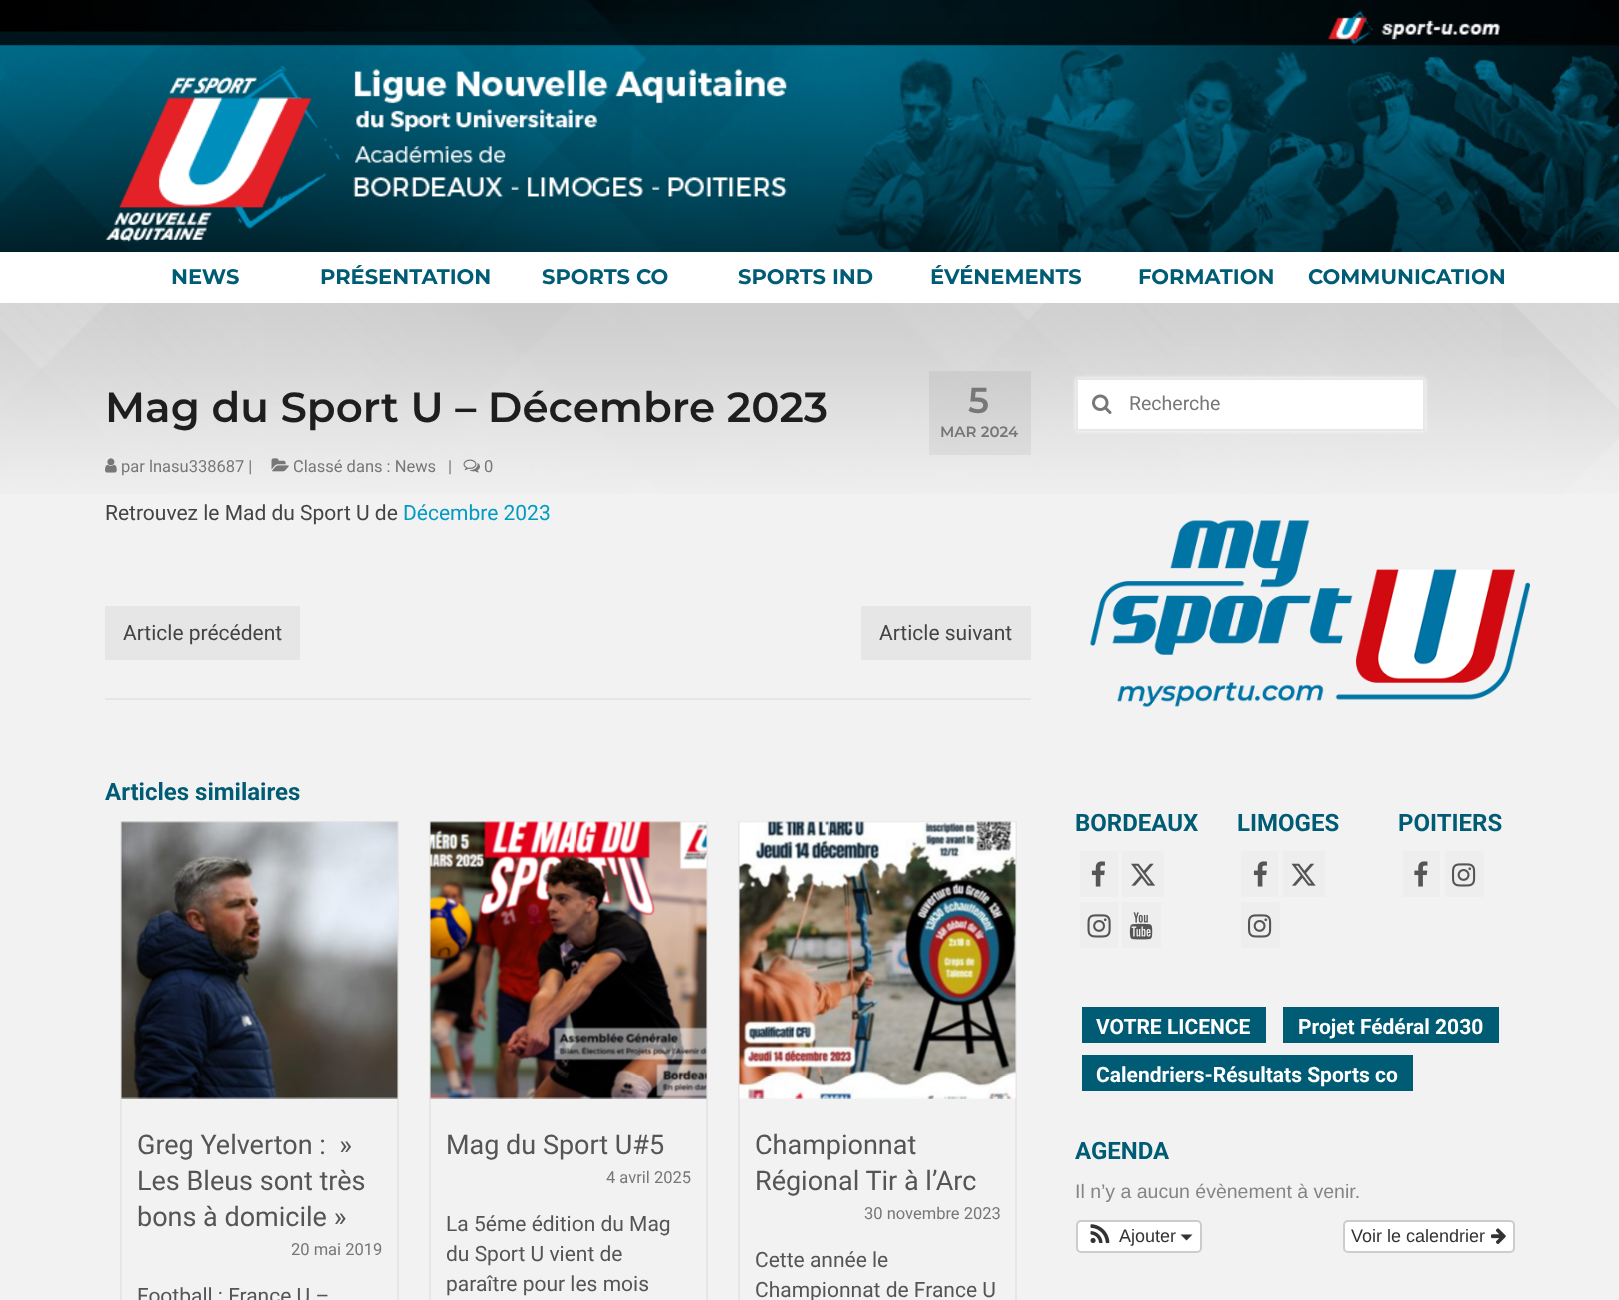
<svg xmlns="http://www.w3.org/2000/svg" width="1619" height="1300">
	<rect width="100%" height="100%" fill="#FFFFFF" />
	<image x="0" y="0" width="1619" height="252" href="assets/img1.png" />
	<image x="1327" y="10" width="173" height="34" href="assets/img2.png" />
	<image x="105" y="66" width="682" height="176" href="assets/img3.png" />
	<g font-family="Montserrat" font-size="21" font-weight="700" fill="#005B74">
		<text x="171" y="284">NEWS</text>
		<text x="320" y="284">PRÉSENTATION</text>
		<text x="542" y="284">SPORTS CO</text>
		<text x="738" y="284">SPORTS IND</text>
		<text x="930" y="284">ÉVÉNEMENTS</text>
		<text x="1138" y="284">FORMATION</text>
		<text x="1308" y="284">COMMUNICATION</text>
	</g>
	<rect x="0" y="494" width="1619" height="806" fill="#F2F2F2" />
	<image x="0" y="303" width="1619" height="191" href="assets/img4.png" />
	<text x="105" y="422" font-family="Montserrat" font-size="42" font-weight="600" fill="#1E1E1E">Mag du Sport U – Décembre 2023</text>
	<image x="105" y="458" width="12" height="15" href="assets/img5.png" />
	<text x="121" y="472" font-family="Roboto" font-size="16.5" fill="#777777">par lnasu338687 |</text>
	<image x="271" y="458" width="18" height="14" href="assets/img6.png" />
	<g font-family="Roboto" font-size="16.5" fill="#777777">
		<text x="293" y="472">Classé dans : News</text>
		<text x="448" y="472">|</text>
	</g>
	<image x="463" y="459" width="17" height="14" href="assets/img7.png" />
	<text x="484" y="472" font-family="Roboto" font-size="16.5" fill="#777777">0</text>
	<rect x="929" y="371" width="102" height="84" fill="#000000" fill-opacity="0.05" />
	<text x="968" y="413" font-family="Montserrat" font-size="36" font-weight="600" fill="#777777">5</text>
	<text x="940" y="437" font-family="Montserrat" font-size="15" font-weight="600" fill="#777777">MAR 2024</text>
	<text x="105" y="520" font-family="Roboto" font-size="21" fill="#444444">Retrouvez le Mad du Sport U de</text>
	<text x="403" y="520" font-family="Roboto" font-size="21" fill="#039AC4">Décembre 2023</text>
	<rect x="105" y="698" width="926" height="2" fill="#E6E6E6" />
	<rect x="105" y="606" width="195" height="54" fill="#E6E6E6" />
	<text x="123" y="640" font-family="Roboto" font-size="21" fill="#444444">Article précédent</text>
	<rect x="861" y="606" width="170" height="54" fill="#E6E6E6" />
	<text x="879" y="640" font-family="Roboto" font-size="21" fill="#444444">Article suivant</text>
	<text x="105" y="800" font-family="Roboto" font-size="24" font-weight="700" fill="#005B74">Articles similaires</text>
	<rect x="121" y="822" width="277" height="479" fill="none" stroke="#E6E6E6" stroke-width="2" />
	<image x="121" y="821" width="277" height="278" href="assets/img8.png" />
	<g font-family="Roboto" font-size="27" fill="#555555">
		<text x="137" y="1154" xml:space="preserve">Greg Yelverton :  »</text>
		<text x="137" y="1190">Les Bleus sont très</text>
		<text x="137" y="1226">bons à domicile »</text>
	</g>
	<text x="291" y="1255" font-family="Roboto" font-size="16.5" fill="#777777">20 mai 2019</text>
	<text x="137" y="1303" font-family="Roboto" font-size="21" fill="#555555">Football : France U –</text>
	<rect x="430" y="822" width="277" height="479" fill="none" stroke="#E6E6E6" stroke-width="2" />
	<image x="430" y="821" width="277" height="278" href="assets/img9.png" />
	<text x="446" y="1154" font-family="Roboto" font-size="27" fill="#555555">Mag du Sport U#5</text>
	<text x="606" y="1183" font-family="Roboto" font-size="16.5" fill="#777777">4 avril 2025</text>
	<g font-family="Roboto" font-size="21" fill="#555555">
		<text x="446" y="1231">La 5éme édition du Mag</text>
		<text x="446" y="1261">du Sport U vient de</text>
		<text x="446" y="1291">paraître pour les mois</text>
	</g>
	<rect x="739" y="822" width="277" height="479" fill="none" stroke="#E6E6E6" stroke-width="2" />
	<image x="739" y="821" width="277" height="278" href="assets/img10.png" />
	<g font-family="Roboto" font-size="27" fill="#555555">
		<text x="755" y="1154">Championnat</text>
		<text x="755" y="1190">Régional Tir à l’Arc</text>
	</g>
	<text x="864" y="1219" font-family="Roboto" font-size="16.5" fill="#777777">30 novembre 2023</text>
	<g font-family="Roboto" font-size="21" fill="#555555">
		<text x="755" y="1267">Cette année le</text>
		<text x="755" y="1297">Championnat de France U</text>
	</g>
	<rect x="1076" y="378" width="349" height="53" fill="#FFFFFF" filter="blur(2px)" />
	<rect x="1077" y="379" width="347" height="51" fill="#FFFFFF" stroke="#E7E7E7" stroke-width="2" />
	<image x="1092" y="394" width="20" height="20" href="assets/img11.png" />
	<text x="1129" y="410" font-family="Roboto" font-size="19.5" fill="#777777">Recherche</text>
	<image x="1090" y="520" width="440" height="187" href="assets/img12.png" />
	<text x="1075" y="831" font-family="Roboto" font-size="24" font-weight="700" fill="#005B74">BORDEAUX</text>
	<rect x="1080" y="851" width="38" height="46" fill="#EEEEEE" />
	<image x="1091" y="861" width="14" height="26" href="assets/img13.png" />
	<rect x="1122" y="851" width="42" height="46" fill="#EEEEEE" />
	<image x="1131" y="863" width="24" height="23" href="assets/img14.png" />
	<rect x="1080" y="902" width="38" height="46" fill="#EEEEEE" />
	<image x="1087" y="914" width="24" height="24" href="assets/img15.png" />
	<rect x="1122" y="902" width="39" height="46" fill="#EEEEEE" />
	<image x="1129" y="912" width="24" height="28" href="assets/img16.png" />
	<text x="1237" y="831" font-family="Roboto" font-size="24" font-weight="700" fill="#005B74">LIMOGES</text>
	<rect x="1241" y="851" width="37" height="46" fill="#EEEEEE" />
	<image x="1253" y="861" width="14" height="26" href="assets/img13.png" />
	<rect x="1283" y="851" width="42" height="46" fill="#EEEEEE" />
	<image x="1291" y="863" width="25" height="23" href="assets/img17.png" />
	<rect x="1241" y="902" width="39" height="46" fill="#EEEEEE" />
	<image x="1248" y="914" width="24" height="24" href="assets/img18.png" />
	<text x="1398" y="831" font-family="Roboto" font-size="24" font-weight="700" fill="#005B74">POITIERS</text>
	<rect x="1403" y="851" width="37" height="46" fill="#EEEEEE" />
	<image x="1414" y="861" width="14" height="26" href="assets/img19.png" />
	<rect x="1445" y="851" width="39" height="46" fill="#EEEEEE" />
	<image x="1452" y="863" width="24" height="24" href="assets/img18.png" />
	<rect x="1082" y="1007" width="184" height="36" fill="#005B74" />
	<text x="1096" y="1034" font-family="Roboto" font-size="21" font-weight="700" fill="#FFFFFF">VOTRE LICENCE</text>
	<rect x="1283" y="1007" width="216" height="36" fill="#005B74" />
	<text x="1298" y="1034" font-family="Roboto" font-size="21" font-weight="700" fill="#FFFFFF">Projet Fédéral 2030</text>
	<rect x="1082" y="1055" width="331" height="36" fill="#005B74" />
	<text x="1096" y="1082" font-family="Roboto" font-size="21" font-weight="700" fill="#FFFFFF">Calendriers-Résultats Sports co</text>
	<text x="1075" y="1159" font-family="Roboto" font-size="24" font-weight="700" fill="#005B74">AGENDA</text>
	<text x="1075" y="1198" font-family="Liberation Sans" font-size="19.5" fill="#858585">Il n’y a aucun évènement à venir.</text>
	<rect x="1077" y="1221" width="124" height="31" rx="4" fill="#FFFFFF" stroke="#CCCCCC" stroke-width="2" />
	<image x="1090" y="1224" width="20" height="20" href="assets/img20.png" />
	<text x="1119" y="1242" font-family="Liberation Sans" font-size="18" fill="#333333">Ajouter</text>
	<path d="M1180.5 1234.5H1192.5L1186.5 1240.5Z" fill="#333333" />
	<rect x="1344" y="1221" width="170" height="31" rx="4" fill="#FFFFFF" stroke="#CCCCCC" stroke-width="2" />
	<text x="1351" y="1242" font-family="Liberation Sans" font-size="18" fill="#333333">Voir le calendrier</text>
	<image x="1491" y="1228" width="15" height="16" href="assets/img21.png" />
</svg>
